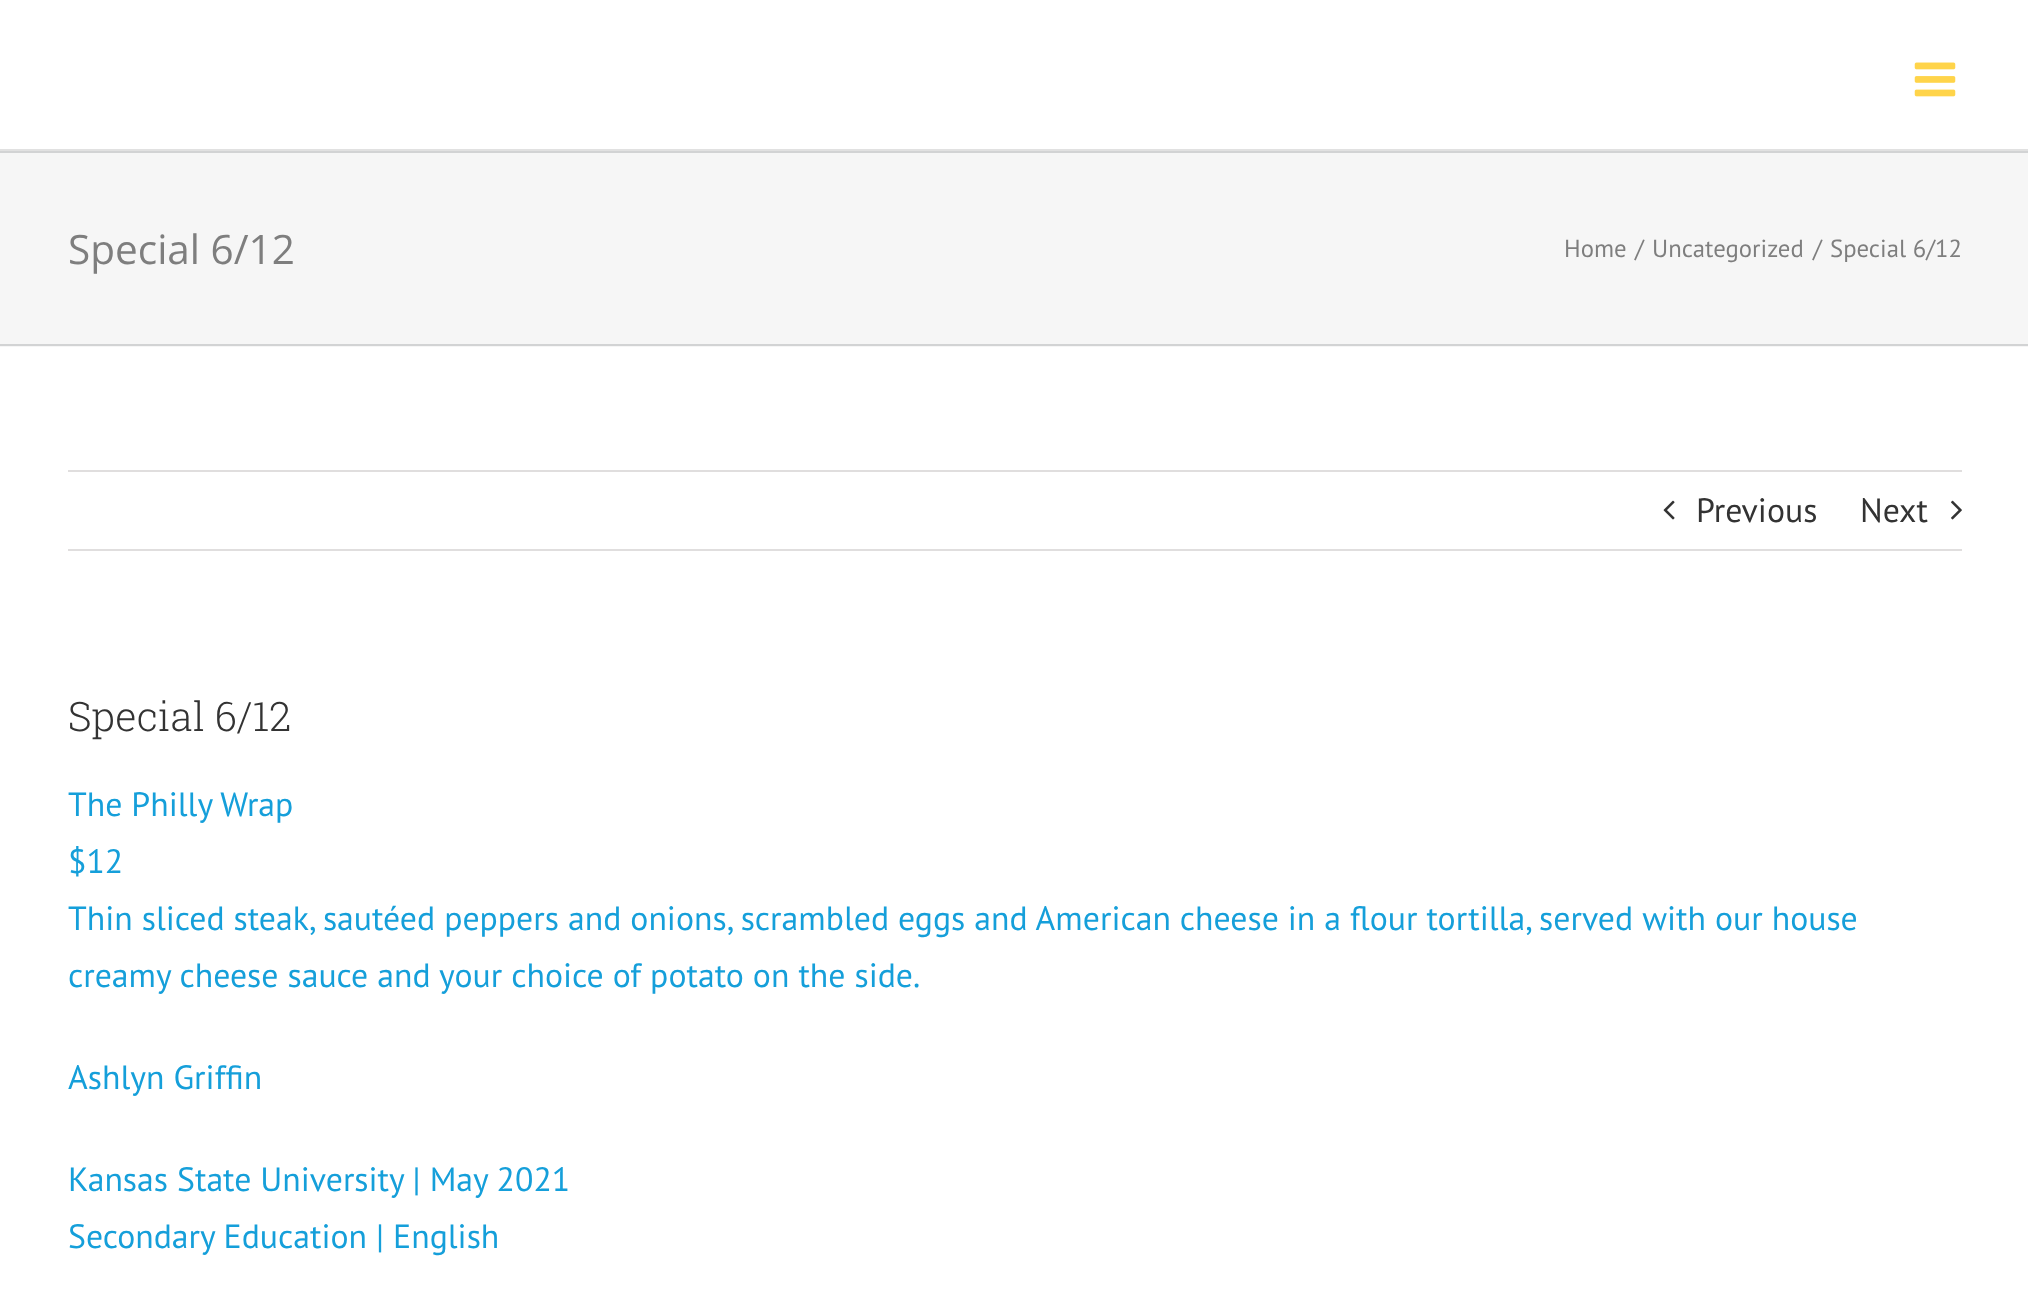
<svg xmlns="http://www.w3.org/2000/svg" width="2028" height="1301">
	<rect width="100%" height="100%" fill="#FFFFFF" />
	<rect x="0" y="149" width="2028" height="2" fill="#E1E1E1" />
	<image x="1914" y="62" width="42" height="35" href="assets/img1.png" />
	<rect x="0" y="153" width="2028" height="194" fill="#F6F6F6" />
	<rect x="0" y="151" width="2028" height="2" fill="#D2D3D4" />
	<rect x="0" y="344" width="2028" height="2" fill="#D2D3D4" />
	<text x="68" y="264" font-family="Open Sans" font-size="40.5" fill="#7E7E7E">Special 6/12</text>
	<g font-family="PT Sans" font-size="24.75" fill="#7E7E7E">
		<text x="1564" y="257">Home</text>
		<text x="1635" y="257">/</text>
		<text x="1652" y="257">Uncategorized</text>
		<text x="1813" y="257">/</text>
		<text x="1830" y="257">Special 6/12</text>
	</g>
	<rect x="68" y="470" width="1894" height="2" fill="#E0DEDE" />
	<rect x="68" y="549" width="1894" height="2" fill="#E0DEDE" />
	<image x="1663" y="500" width="12" height="20" href="assets/img2.png" />
	<g font-family="PT Sans" font-size="33.75" fill="#333333">
		<text x="1696" y="522">Previous</text>
		<text x="1860" y="522">Next</text>
	</g>
	<image x="1951" y="500" width="11" height="20" href="assets/img3.png" />
	<text x="68" y="731" font-family="Roboto Slab" font-size="40.5" font-weight="300" fill="#333333">Special 6/12</text>
	<g font-family="PT Sans" font-size="33.75" fill="#159FDA">
		<text x="68" y="816">The Philly Wrap</text>
		<text x="68" y="873">$12</text>
		<text x="68" y="930">Thin sliced steak, sautéed peppers and onions, scrambled eggs and American cheese in a flour tortilla, served with our house</text>
		<text x="68" y="987">creamy cheese sauce and your choice of potato on the side.</text>
		<text x="68" y="1089">Ashlyn Griffin</text>
		<text x="68" y="1191">Kansas State University | May 2021</text>
		<text x="68" y="1248">Secondary Education | English</text>
	</g>
</svg>
